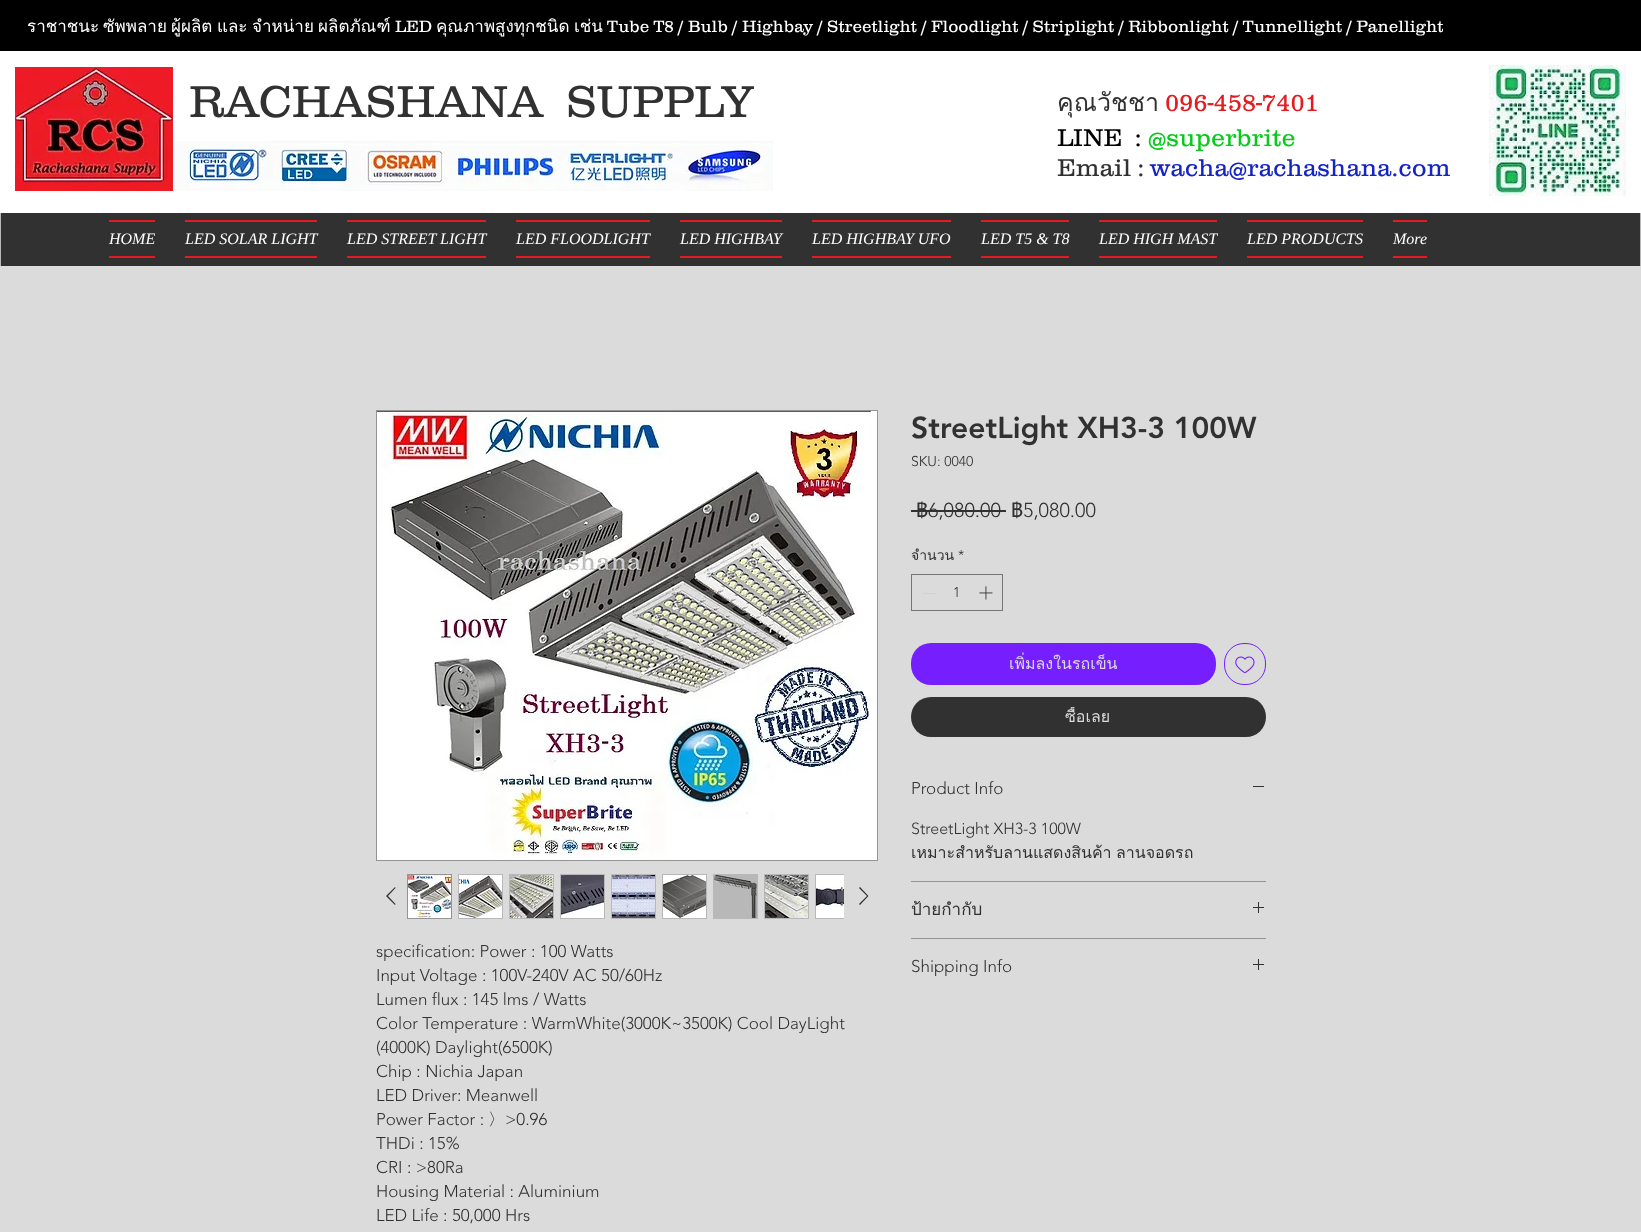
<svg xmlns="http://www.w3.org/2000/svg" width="1641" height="1232">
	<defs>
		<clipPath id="clip1"><rect x="1065" y="707" width="46" height="20" /></clipPath>
	</defs>
	<rect width="100%" height="100%" fill="#DBDBDB" />
	<rect x="0" y="0" width="1641" height="51" fill="#000000" />
	<g font-family="Loma" font-size="17" fill="#FFFFFF">
		<text x="27" y="32">ราชาชนะ</text>
		<text x="103" y="32">ซัพพลาย</text>
		<text x="171" y="32">ผู้ผลิต</text>
		<text x="217" y="32">และ</text>
		<text x="252" y="32">จำหน่าย</text>
		<text x="318" y="32">ผลิตภัณฑ์</text>
	</g>
	<text x="395" y="32" font-family="'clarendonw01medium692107'" font-size="17" font-weight="300" fill="#FFFFFF">LED</text>
	<g font-family="Loma" font-size="17" fill="#FFFFFF">
		<text x="436" y="32">คุณภาพสูงทุกชนิด</text>
		<text x="574" y="32">เช่น</text>
	</g>
	<text x="607" y="32" font-family="'clarendonw01medium692107'" font-size="17" font-weight="300" fill="#FFFFFF">Tube T8 / Bulb / Highbay / Streetlight / Floodlight / Striplight / Ribbonlight / Tunnellight / Panellight</text>
	<rect x="0" y="51" width="1641" height="162" fill="#FFFFFF" />
	<image x="15" y="67" width="158" height="124" href="assets/img1.png" />
	<text x="189" y="117" font-family="'clarendonw01medium692107'" font-size="46" font-weight="300" fill="#313131" xml:space="preserve">RACHASHANA  SUPPLY</text>
	<image x="173" y="141" width="600" height="50" href="assets/img2.png" />
	<text x="1057" y="111" font-family="Loma" font-size="25" fill="#313131">คุณวัชชา</text>
	<text x="1165" y="111" font-family="'clarendonw01medium692107'" font-size="25" font-weight="300" fill="#E21C21">096-458-7401</text>
	<text x="1057" y="146" font-family="'clarendonw01medium692107'" font-size="25" font-weight="300" fill="#000000" xml:space="preserve">LINE  :</text>
	<text x="1148" y="146" font-family="'clarendonw01medium692107'" font-size="25" font-weight="300" fill="#08CA1D">@superbrite</text>
	<text x="1057" y="176" font-family="'clarendonw01medium692107'" font-size="25" font-weight="300" fill="#313131">Email :</text>
	<text x="1150" y="176" font-family="'clarendonw01medium692107'" font-size="25" font-weight="300" fill="#1524C6">wacha@rachashana.com</text>
	<image x="1489" y="65" width="137" height="131" href="assets/img3.png" />
	<rect x="0" y="213" width="1641" height="53" fill="#B8B8B8" />
	<rect x="1" y="213" width="1639" height="53" fill="#313131" />
	<rect x="109" y="220" width="46" height="2" fill="#E21C21" />
	<rect x="109" y="256" width="46" height="2" fill="#E21C21" />
	<text x="109" y="244" font-family="Liberation Serif" font-size="16" font-style="italic" fill="#FFFFFF">HOME</text>
	<rect x="185" y="220" width="132" height="2" fill="#E21C21" />
	<rect x="185" y="256" width="132" height="2" fill="#E21C21" />
	<text x="185" y="244" font-family="Liberation Serif" font-size="16" font-style="italic" fill="#FFFFFF">LED SOLAR LIGHT</text>
	<rect x="347" y="220" width="139" height="2" fill="#E21C21" />
	<rect x="347" y="256" width="139" height="2" fill="#E21C21" />
	<text x="347" y="244" font-family="Liberation Serif" font-size="16" font-style="italic" fill="#FFFFFF">LED STREET LIGHT</text>
	<rect x="516" y="220" width="134" height="2" fill="#E21C21" />
	<rect x="516" y="256" width="134" height="2" fill="#E21C21" />
	<text x="516" y="244" font-family="Liberation Serif" font-size="16" font-style="italic" fill="#FFFFFF">LED FLOODLIGHT</text>
	<rect x="680" y="220" width="102" height="2" fill="#E21C21" />
	<rect x="680" y="256" width="102" height="2" fill="#E21C21" />
	<text x="680" y="244" font-family="Liberation Serif" font-size="16" font-style="italic" fill="#FFFFFF">LED HIGHBAY</text>
	<rect x="812" y="220" width="139" height="2" fill="#E21C21" />
	<rect x="812" y="256" width="139" height="2" fill="#E21C21" />
	<text x="812" y="244" font-family="Liberation Serif" font-size="16" font-style="italic" fill="#FFFFFF">LED HIGHBAY UFO</text>
	<rect x="981" y="220" width="88" height="2" fill="#E21C21" />
	<rect x="981" y="256" width="88" height="2" fill="#E21C21" />
	<text x="981" y="244" font-family="Liberation Serif" font-size="16" font-style="italic" fill="#FFFFFF">LED T5 &amp; T8</text>
	<rect x="1099" y="220" width="118" height="2" fill="#E21C21" />
	<rect x="1099" y="256" width="118" height="2" fill="#E21C21" />
	<text x="1099" y="244" font-family="Liberation Serif" font-size="16" font-style="italic" fill="#FFFFFF">LED HIGH MAST</text>
	<rect x="1247" y="220" width="116" height="2" fill="#E21C21" />
	<rect x="1247" y="256" width="116" height="2" fill="#E21C21" />
	<text x="1247" y="244" font-family="Liberation Serif" font-size="16" font-style="italic" fill="#FFFFFF">LED PRODUCTS</text>
	<rect x="1393" y="220" width="34" height="2" fill="#E21C21" />
	<rect x="1393" y="256" width="34" height="2" fill="#E21C21" />
	<text x="1393" y="244" font-family="Liberation Serif" font-size="16" font-style="italic" fill="#FFFFFF">More</text>
	<text x="911" y="438" font-family="'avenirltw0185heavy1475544'" font-size="30" font-weight="900" fill="#313131">StreetLight XH3-3 100W</text>
	<text x="911" y="466" font-family="'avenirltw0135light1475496'" font-size="14" font-weight="300" fill="#313131">SKU: 0040</text>
	<text x="916" y="517" font-family="Loma" font-size="20" fill="#313131">฿</text>
	<text x="928" y="517" font-family="'avenirltw0135light1475496'" font-size="20" font-weight="300" fill="#313131">6,080.00</text>
	<rect x="911" y="510" width="95" height="2" fill="#313131" />
	<text x="1011" y="517" font-family="Loma" font-size="20" fill="#313131">฿</text>
	<text x="1023" y="517" font-family="'avenirltw0135light1475496'" font-size="20" font-weight="300" fill="#313131">5,080.00</text>
	<text x="911" y="560" font-family="Loma" font-size="14" fill="#313131">จำนวน</text>
	<text x="958" y="560" font-family="'avenirltw0135light1475496'" font-size="14" font-weight="300" fill="#313131">*</text>
	<rect x="911.5" y="574.5" width="91" height="36" fill="none" stroke="#757575" />
	<rect x="923" y="593" width="13" height="1" fill="#D1D1D1" />
	<text x="953" y="597" font-family="'avenirltw0135light1475496'" font-size="14" font-weight="300" fill="#313131">1</text>
	<image x="979" y="586" width="14" height="14" href="assets/img4.png" />
	<rect x="911" y="643" width="305" height="42" rx="20" fill="#751FFF" />
	<text x="1009" y="669" font-family="Loma" font-size="16" fill="#DBDBDB">เพิ่มลงในรถเข็น</text>
	<rect x="1224.5" y="643.5" width="41" height="41" rx="19.5" fill="none" stroke="#751FFF" />
	<image x="1235" y="656" width="20" height="18" href="assets/img5.png" />
	<rect x="911" y="697" width="355" height="40" rx="20" fill="#313131" />
	<g clip-path="url(#clip1)">
		<text x="1065" y="722" font-family="Loma" font-size="16" fill="#DBDBDB">ซื้อเลย</text>
	</g>
	<rect x="911" y="881" width="355" height="1" fill="#949494" />
	<text x="911" y="794" font-family="'avenirltw0135light1475496'" font-size="17" font-weight="300" fill="#313131">Product Info</text>
	<rect x="1253" y="786" width="11" height="1" fill="#313131" />
	<text x="911" y="834" font-family="'avenirltw0135light1475496'" font-size="16" font-weight="300" fill="#313131">StreetLight XH3-3 100W</text>
	<text x="911" y="858" word-spacing="-1" font-family="Loma" font-size="16" fill="#313131">เหมาะสำหรับลานแสดงสินค้า ลานจอดรถ</text>
	<rect x="911" y="938" width="355" height="1" fill="#949494" />
	<text x="911" y="915" font-family="Loma" font-size="17" fill="#313131">ป้ายกำกับ</text>
	<image x="1253" y="902" width="11" height="11" href="assets/img6.png" />
	<text x="911" y="972" font-family="'avenirltw0135light1475496'" font-size="17" font-weight="300" fill="#313131">Shipping Info</text>
	<image x="1253" y="959" width="11" height="11" href="assets/img6.png" />
	<rect x="376.5" y="410.5" width="501" height="450" fill="none" stroke="#949494" />
	<image x="377" y="411" width="500" height="449" href="assets/img7.png" />
	<path d="M395 887L395.5 888L388 896L395.5 904L395 905L386 896Z" fill="#313131" fill-rule="evenodd" />
	<rect x="407.5" y="874.5" width="44" height="44" fill="none" stroke="#949494" />
	<image x="408" y="875" width="43" height="43" href="assets/img8.png" />
	<rect x="458" y="874" width="45" height="45" fill="#B8B8B8" />
	<image x="459" y="875" width="43" height="43" href="assets/img9.png" />
	<rect x="509" y="874" width="45" height="45" fill="#B8B8B8" />
	<image x="510" y="875" width="43" height="43" href="assets/img10.png" />
	<rect x="560" y="874" width="45" height="45" fill="#B8B8B8" />
	<image x="561" y="875" width="43" height="43" href="assets/img11.png" />
	<rect x="611" y="874" width="45" height="45" fill="#B8B8B8" />
	<image x="612" y="875" width="43" height="43" href="assets/img12.png" />
	<rect x="662" y="874" width="45" height="45" fill="#B8B8B8" />
	<image x="663" y="875" width="43" height="43" href="assets/img13.png" />
	<rect x="713" y="874" width="45" height="45" fill="#B8B8B8" />
	<image x="714" y="875" width="43" height="43" href="assets/img14.png" />
	<rect x="764" y="874" width="45" height="45" fill="#B8B8B8" />
	<image x="765" y="875" width="43" height="43" href="assets/img15.png" />
	<rect x="815" y="874" width="29" height="45" fill="#B8B8B8" />
	<image x="816" y="875" width="28" height="43" href="assets/img16.png" />
	<path d="M860 887L868.5 896L860 905L859 904L867 896L859 888Z" fill="#313131" fill-rule="evenodd" />
	<g font-family="'avenirltw0135light1475496'" font-size="17" font-weight="300" fill="#313131">
		<text x="376" y="957">specification: Power : 100 Watts</text>
		<text x="376" y="981">Input Voltage : 100V-240V AC 50/60Hz</text>
		<text x="376" y="1005">Lumen flux : 145 lms / Watts</text>
		<text x="376" y="1029">Color Temperature : WarmWhite(3000K~3500K) Cool DayLight</text>
		<text x="376" y="1053">(4000K) Daylight(6500K)</text>
		<text x="376" y="1077">Chip : Nichia Japan</text>
		<text x="376" y="1101">LED Driver: Meanwell</text>
		<text x="376" y="1125">Power Factor :</text>
	</g>
	<text x="488" y="1125" font-family="WenQuanYi Zen Hei" font-size="17" font-weight="500" fill="#313131">〉</text>
	<g font-family="'avenirltw0135light1475496'" font-size="17" font-weight="300" fill="#313131">
		<text x="505" y="1125">&gt;0.96</text>
		<text x="376" y="1149">THDi : 15%</text>
		<text x="376" y="1173">CRI : &gt;80Ra</text>
		<text x="376" y="1197">Housing Material : Aluminium</text>
		<text x="376" y="1221">LED Life : 50,000 Hrs</text>
	</g>
</svg>
